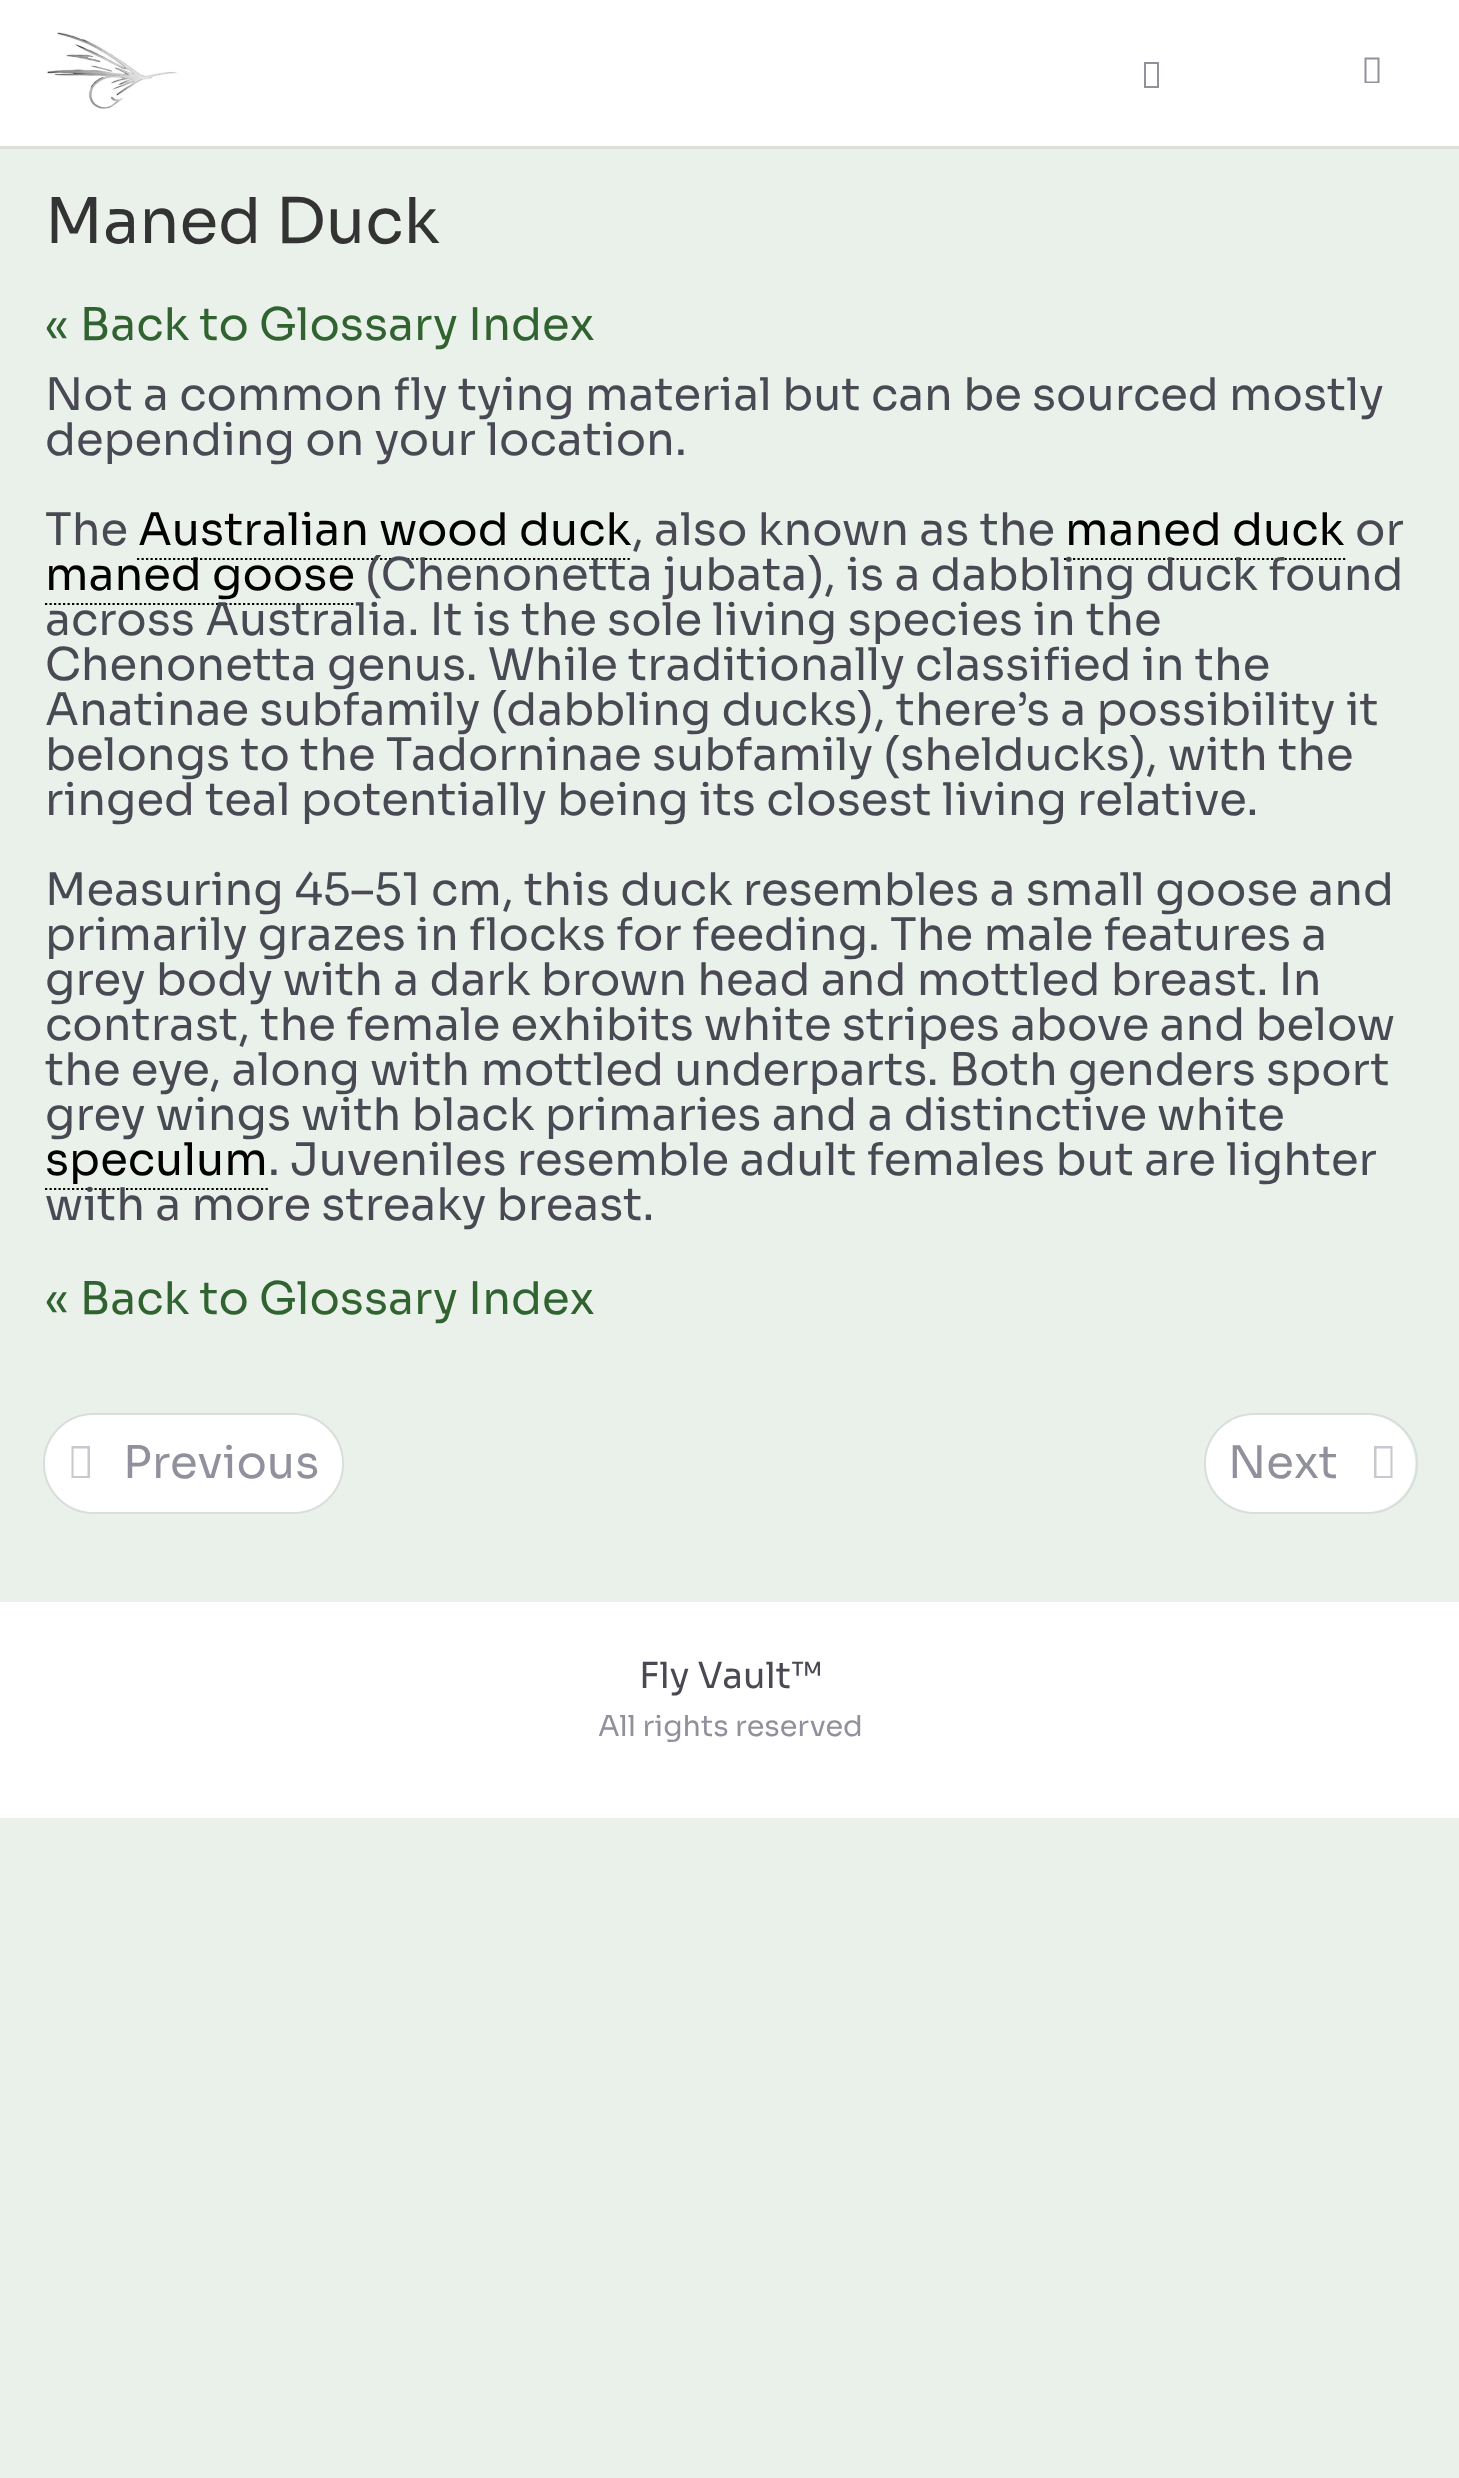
<svg xmlns="http://www.w3.org/2000/svg" width="1459" height="2478">
	<rect width="100%" height="100%" fill="#EAF1EA" />
	<rect x="0" y="146" width="1459" height="3" fill="#DAE1DB" />
	<rect x="0" y="0" width="1459" height="146" fill="#FFFFFF" />
	<image x="47" y="32" width="131" height="77" href="assets/img1.png" />
	<path d="M1144 88V62H1159V88ZM1146 86H1157V64H1146Z" fill="#91919D" />
	<path d="M1364.5 83V57.5H1379.5V83ZM1366.5 81.5H1377.5V59.5H1366.5Z" fill="#91919D" />
	<text x="45" y="243" font-family="Sora" font-size="63" fill="#333333">Maned Duck</text>
	<text x="45" y="340" font-family="Sora" font-size="45" fill="#316331">« Back to Glossary Index</text>
	<g font-family="Sora" font-size="45" fill="#494954">
		<text x="45" y="410">Not a common fly tying material but can be sourced mostly</text>
		<text x="45" y="455">depending on your location.</text>
		<text x="45" y="545">The</text>
	</g>
	<text x="138" y="545" font-family="Sora" font-size="45" fill="#000000">Australian wood duck</text>
	<path d="M137 559H632" fill="none" stroke="#000000" stroke-width="2.2" stroke-dasharray="2.25 2.25" />
	<text x="632" y="545" font-family="Sora" font-size="45" fill="#494954">, also known as the</text>
	<text x="1065" y="545" font-family="Sora" font-size="45" fill="#000000">maned duck</text>
	<path d="M1064 559H1345.5" fill="none" stroke="#000000" stroke-width="2.2" stroke-dasharray="2.25 2.25" />
	<text x="1355" y="545" font-family="Sora" font-size="45" fill="#494954">or</text>
	<text x="45" y="590" font-family="Sora" font-size="45" fill="#000000">maned goose</text>
	<path d="M45 604H355.5" fill="none" stroke="#000000" stroke-width="2.2" stroke-dasharray="2.25 2.25" />
	<g font-family="Sora" font-size="45" fill="#494954">
		<text x="365" y="590">(Chenonetta jubata), is a dabbling duck found</text>
		<text x="45" y="635">across Australia. It is the sole living species in the</text>
		<text x="45" y="680">Chenonetta genus. While traditionally classified in the</text>
		<text x="45" y="725">Anatinae subfamily (dabbling ducks), there’s a possibility it</text>
		<text x="45" y="770">belongs to the Tadorninae subfamily (shelducks), with the</text>
		<text x="45" y="815">ringed teal potentially being its closest living relative.</text>
		<text x="45" y="905">Measuring 45–51 cm, this duck resembles a small goose and</text>
		<text x="45" y="950">primarily grazes in flocks for feeding. The male features a</text>
		<text x="45" y="995">grey body with a dark brown head and mottled breast. In</text>
		<text x="45" y="1040">contrast, the female exhibits white stripes above and below</text>
		<text x="45" y="1085">the eye, along with mottled underparts. Both genders sport</text>
		<text x="45" y="1130">grey wings with black primaries and a distinctive white</text>
	</g>
	<text x="45" y="1175" font-family="Sora" font-size="45" fill="#000000">speculum</text>
	<path d="M45 1189H268" fill="none" stroke="#000000" stroke-width="2.2" stroke-dasharray="2.25 2.25" />
	<g font-family="Sora" font-size="45" fill="#494954">
		<text x="268" y="1175">. Juveniles resemble adult females but are lighter</text>
		<text x="45" y="1220">with a more streaky breast.</text>
	</g>
	<text x="45" y="1314" font-family="Sora" font-size="45" fill="#316331">« Back to Glossary Index</text>
	<rect x="44" y="1414" width="299" height="99" rx="49.5" fill="none" stroke="#D7DFDB" stroke-width="2" />
	<rect x="45" y="1415" width="297" height="97" rx="48.5" fill="#FFFFFF" />
	<path d="M71.5 1478V1446H90V1478ZM73.5 1476H87.5V1448.5H73.5Z" fill="#C8C8CE" />
	<text x="123" y="1478" font-family="Sora" font-size="45" fill="#91919D">Previous</text>
	<rect x="1205" y="1414" width="212" height="99" rx="49.5" fill="none" stroke="#D7DFDB" stroke-width="2" />
	<rect x="1206" y="1415" width="209" height="97" rx="48.5" fill="#FFFFFF" />
	<text x="1228" y="1478" font-family="Sora" font-size="45" fill="#91919D">Next</text>
	<path d="M1374 1478V1446H1392.5V1478ZM1376.5 1476H1390.5V1448.5H1376.5Z" fill="#C8C8CE" />
	<rect x="0" y="1602" width="1459" height="216" fill="#FFFFFF" />
	<text x="639" y="1688" font-family="Sora" font-size="36" fill="#494954">Fly Vault™</text>
	<text x="598" y="1736" font-family="Sora" font-size="28.75" fill="#91919D">All rights reserved</text>
</svg>
